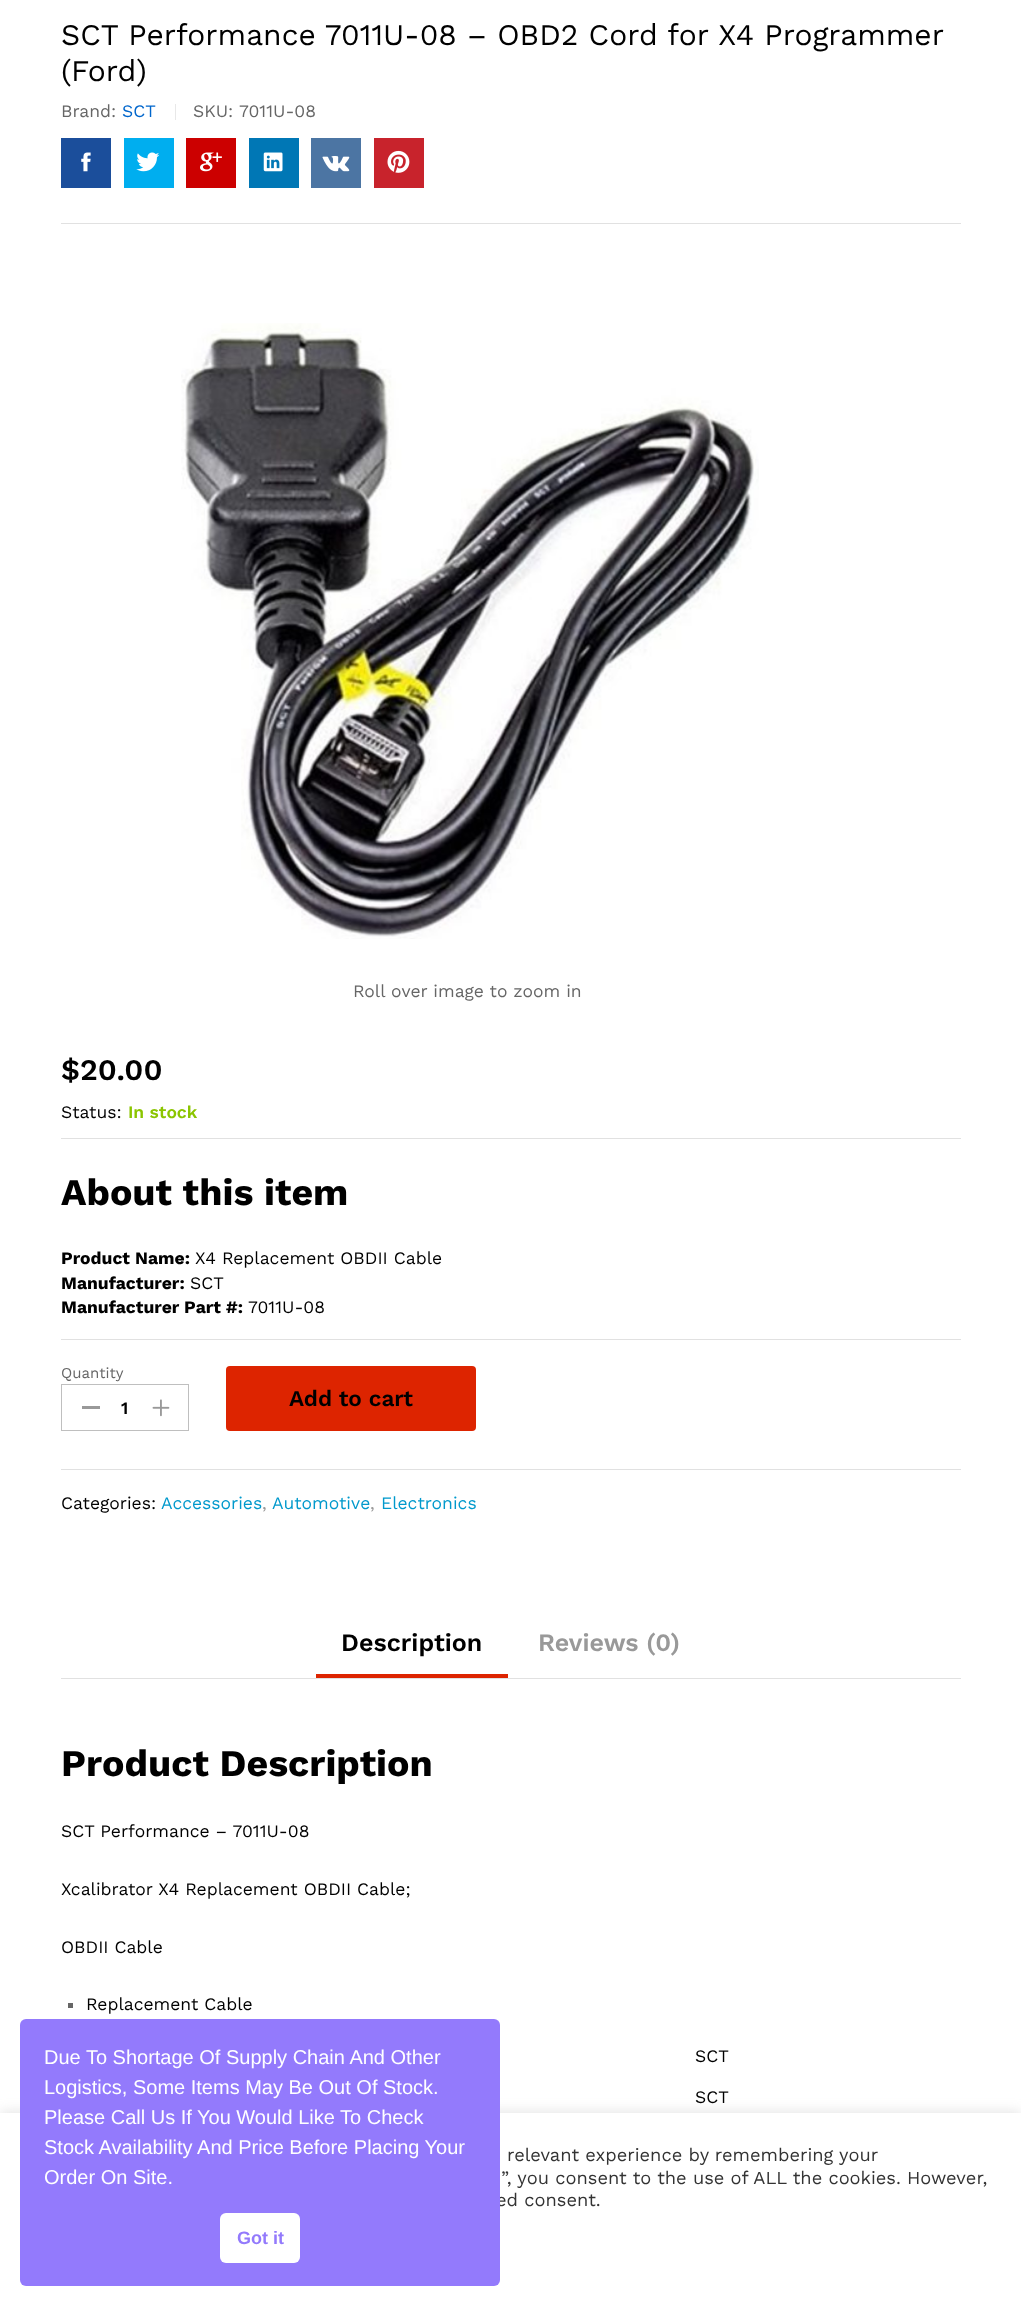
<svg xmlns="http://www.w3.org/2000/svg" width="1021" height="2306">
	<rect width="100%" height="100%" fill="#FFFFFF" />
	<rect x="61" y="223" width="900" height="1" fill="#E1E1E1" />
	<g font-family="Work Sans" font-size="30" fill="#000000">
		<text x="61" y="45">SCT Performance 7011U-08 – OBD2 Cord for X4 Programmer</text>
		<text x="61" y="81">(Ford)</text>
	</g>
	<text x="61" y="117" font-family="Work Sans" font-size="17.5" fill="#666666">Brand:</text>
	<text x="122" y="117" font-family="Work Sans" font-size="17.5" fill="#0066CC">SCT</text>
	<rect x="175" y="104" width="1" height="16" fill="#E8E8E8" />
	<g font-family="Work Sans" font-size="17.5" fill="#666666">
		<text x="193" y="117">SKU:</text>
		<text x="239" y="117">7011U-08</text>
	</g>
	<rect x="61" y="138" width="50" height="50" fill="#1B4E9B" />
	<image x="81" y="152" width="10" height="20" href="assets/img1.png" />
	<rect x="124" y="138" width="50" height="50" fill="#00AEEF" />
	<image x="136" y="152" width="24" height="20" href="assets/img2.png" />
	<rect x="186" y="138" width="50" height="50" fill="#CC0000" />
	<image x="200" y="152" width="22" height="20" href="assets/img3.png" />
	<rect x="249" y="138" width="50" height="50" fill="#0077B5" />
	<image x="263" y="152" width="20" height="20" href="assets/img4.png" />
	<rect x="311" y="138" width="50" height="50" fill="#4C75A3" />
	<image x="322" y="156" width="28" height="16" href="assets/img5.png" />
	<rect x="374" y="138" width="50" height="50" fill="#C8232C" />
	<image x="387" y="150" width="23" height="23" href="assets/img6.png" />
	<image x="181" y="323" width="578" height="616" href="assets/img7.png" />
	<text x="353" y="997" font-family="Work Sans" font-size="17.5" fill="#666666">Roll over image to zoom in</text>
	<text x="61" y="1080" font-family="Work Sans" font-size="30" font-weight="600" fill="#000000">$20.00</text>
	<rect x="61" y="1138" width="900" height="1" fill="#E1E1E1" />
	<text x="61" y="1118" font-family="Work Sans" font-size="17.5" fill="#000000">Status:</text>
	<text x="128" y="1118" font-family="Work Sans" font-size="17.5" font-weight="600" fill="#8BC500">In stock</text>
	<rect x="61" y="1339" width="900" height="1" fill="#E1E1E1" />
	<text x="61" y="1205" font-family="Work Sans" font-size="37.5" font-weight="700" fill="#000000">About this item</text>
	<text x="61" y="1264" font-family="Work Sans" font-size="17.5" font-weight="700" fill="#000000">Product Name:</text>
	<text x="195" y="1264" font-family="Work Sans" font-size="17.5" fill="#000000">X4 Replacement OBDII Cable</text>
	<text x="61" y="1289" font-family="Work Sans" font-size="17.5" font-weight="700" fill="#000000">Manufacturer:</text>
	<text x="190" y="1289" font-family="Work Sans" font-size="17.5" fill="#000000">SCT</text>
	<text x="61" y="1313" font-family="Work Sans" font-size="17.5" font-weight="700" fill="#000000">Manufacturer Part #:</text>
	<text x="248" y="1313" font-family="Work Sans" font-size="17.5" fill="#000000">7011U-08</text>
	<text x="61" y="1378" font-family="Work Sans" font-size="15" fill="#666666">Quantity</text>
	<rect x="61.5" y="1384.5" width="127" height="46" fill="none" stroke="#BFBFBF" />
	<rect x="82" y="1406" width="18" height="3" fill="#999999" />
	<text x="121" y="1414" font-family="Work Sans" font-size="17.5" font-weight="600" fill="#000000">1</text>
	<image x="152" y="1399" width="18" height="18" href="assets/img8.png" />
	<rect x="226" y="1366" width="250" height="65" rx="4" fill="#DD2400" />
	<text x="289" y="1406" font-family="Work Sans" font-size="22.5" font-weight="600" fill="#000000">Add to cart</text>
	<rect x="61" y="1469" width="900" height="1" fill="#E1E1E1" />
	<text x="61" y="1509" font-family="Work Sans" font-size="17.5" fill="#000000">Categories:</text>
	<text x="161" y="1509" font-family="Work Sans" font-size="17.5" fill="#0099CC">Accessories</text>
	<text x="262" y="1509" font-family="Work Sans" font-size="17.5" fill="#999999">,</text>
	<text x="272" y="1509" font-family="Work Sans" font-size="17.5" fill="#0099CC">Automotive</text>
	<text x="370" y="1509" font-family="Work Sans" font-size="17.5" fill="#999999">,</text>
	<text x="381" y="1509" font-family="Work Sans" font-size="17.5" fill="#0099CC">Electronics</text>
	<rect x="61" y="1678" width="900" height="1" fill="#E1E1E1" />
	<text x="341" y="1651" font-family="Work Sans" font-size="25" font-weight="600" fill="#000000">Description</text>
	<text x="538" y="1651" font-family="Work Sans" font-size="25" font-weight="600" fill="#999999">Reviews (0)</text>
	<rect x="316" y="1674" width="192" height="4" fill="#DD2400" />
	<text x="61" y="1776" font-family="Work Sans" font-size="37.5" font-weight="700" fill="#000000">Product Description</text>
	<g font-family="Work Sans" font-size="17.5" fill="#000000">
		<text x="61" y="1837">SCT Performance – 7011U-08</text>
		<text x="61" y="1895">Xcalibrator X4 Replacement OBDII Cable;</text>
		<text x="61" y="1953">OBDII Cable</text>
	</g>
	<rect x="68" y="2003" width="5" height="5" fill="#666666" />
	<g font-family="Work Sans" font-size="17.5" fill="#000000">
		<text x="86" y="2010">Replacement Cable</text>
		<text x="695" y="2062">SCT</text>
		<text x="695" y="2103">SCT</text>
	</g>
	<rect x="0" y="2111" width="1021" height="194" fill="#ACABAB" fill-opacity="0.3" filter="blur(6px)" />
	<rect x="0" y="2113" width="1021" height="193" fill="#FFFFFF" />
	<text x="496" y="2206" font-family="Work Sans" font-size="18.3" fill="#333333">ed consent.</text>
	<rect x="20" y="2019" width="480" height="267" rx="6" fill="#937AFC" />
	<g font-family="Liberation Sans" font-size="20" fill="#FFFFFF">
		<text x="44" y="2064">Due To Shortage Of Supply Chain And Other</text>
		<text x="44" y="2094">Logistics, Some Items May Be Out Of Stock.</text>
		<text x="44" y="2124">Please Call Us If You Would Like To Check</text>
		<text x="44" y="2154">Stock Availability And Price Before Placing Your</text>
		<text x="44" y="2184">Order On Site.</text>
	</g>
	<rect x="220" y="2213" width="80" height="50" rx="6" fill="#FFFFFF" />
	<text x="237" y="2244" font-family="Liberation Sans" font-size="18" font-weight="700" fill="#937AFC">Got it</text>
	<g font-family="Work Sans" font-size="18.3" fill="#333333">
		<text x="507" y="2161">relevant experience by remembering your</text>
		<text x="501" y="2184">”, you consent to the use of ALL the cookies. However,</text>
	</g>
</svg>
